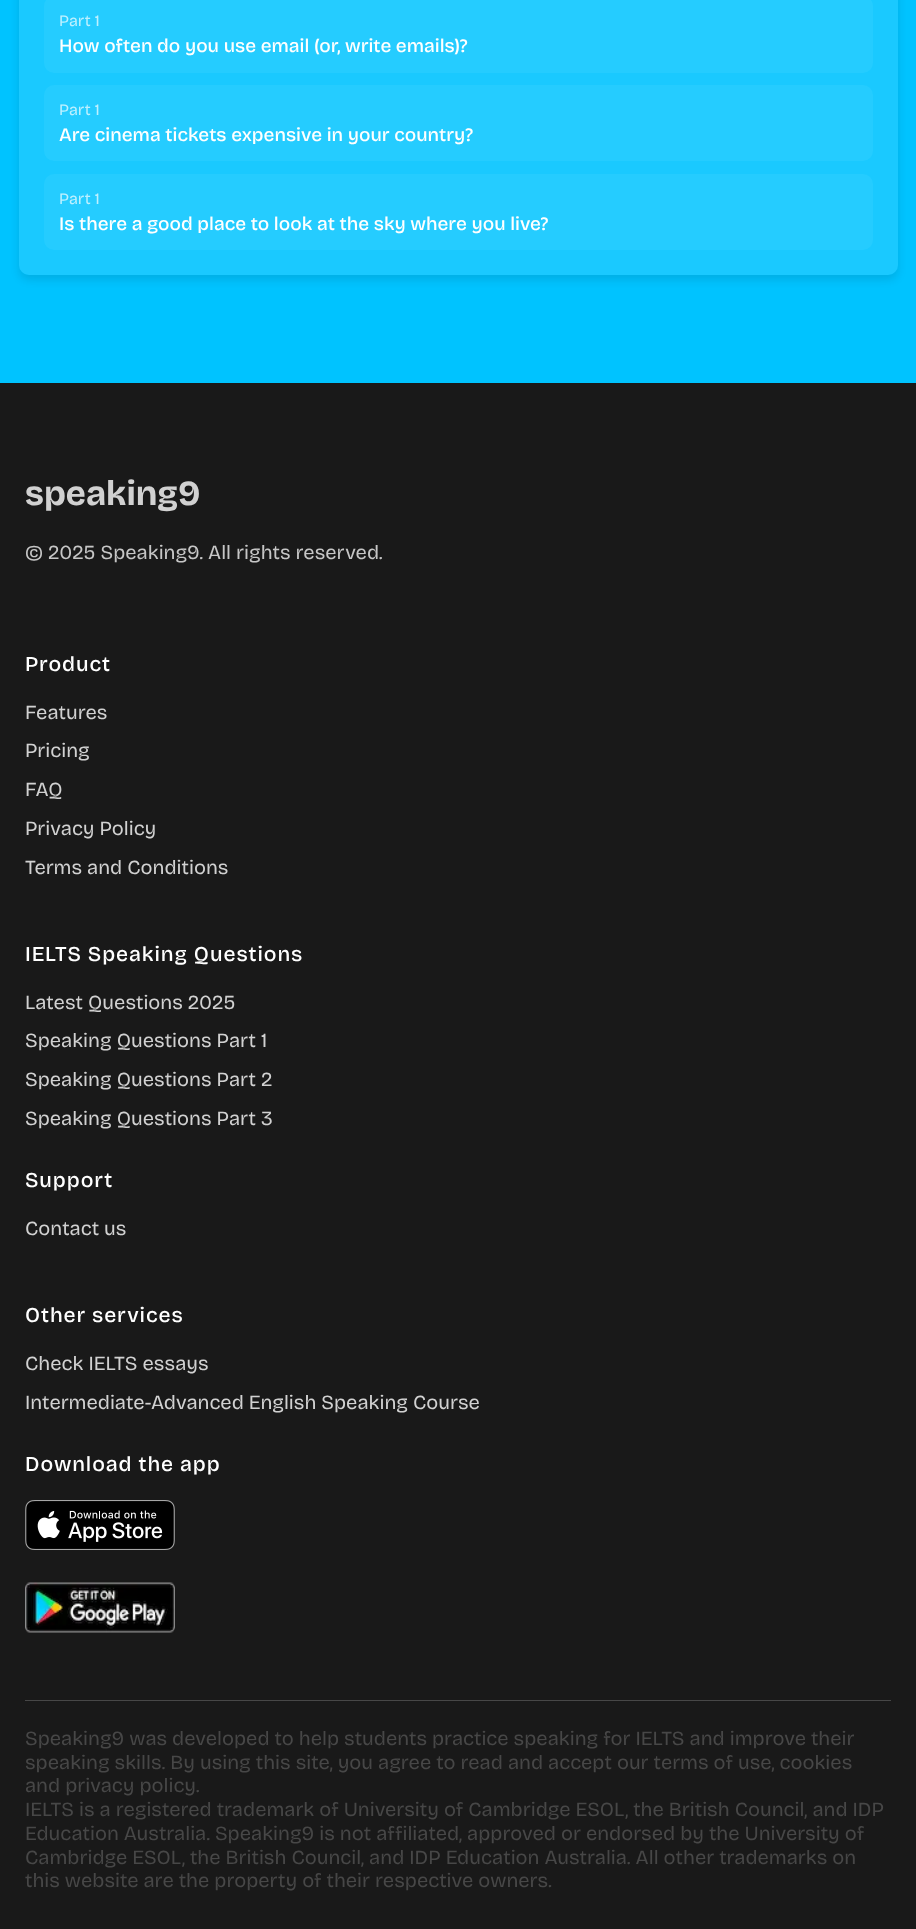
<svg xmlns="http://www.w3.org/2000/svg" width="916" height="1929">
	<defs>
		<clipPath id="clip1"><path d="M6 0H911V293H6ZM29-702H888C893.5-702 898-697.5 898-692V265C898 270.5 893.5 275 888 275H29C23.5 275 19 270.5 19 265V-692C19-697.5 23.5-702 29-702Z" clip-rule="evenodd" /></clipPath>
	</defs>
	<rect width="100%" height="100%" fill="#00C3FF" />
	<g clip-path="url(#clip1)">
		<rect x="19" y="-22" width="879" height="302" rx="10" fill="#000000" fill-opacity="0.1" filter="blur(4px)" />
	</g>
	<rect x="19" y="-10" width="879" height="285" rx="10" fill="#FFFFFF" fill-opacity="0.1" />
	<rect x="44" y="-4" width="829" height="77" rx="10" fill="#25CCFF" />
	<text x="59" y="26" font-family="'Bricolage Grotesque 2'" font-size="16" fill="#BEF0FF">Part 1</text>
	<text x="59" y="52" font-family="'Bricolage Grotesque 2'" font-size="19" font-weight="500" fill="#FFFFFF">How often do you use email (or, write emails)?</text>
	<rect x="44" y="85" width="829" height="76" rx="10" fill="#25CCFF" />
	<text x="59" y="115" font-family="'Bricolage Grotesque 2'" font-size="16" fill="#BEF0FF">Part 1</text>
	<text x="59" y="141" font-family="'Bricolage Grotesque 2'" font-size="19" font-weight="500" fill="#FFFFFF">Are cinema tickets expensive in your country?</text>
	<rect x="44" y="174" width="829" height="76" rx="10" fill="#25CCFF" />
	<text x="59" y="204" font-family="'Bricolage Grotesque 2'" font-size="16" fill="#BEF0FF">Part 1</text>
	<text x="59" y="230" font-family="'Bricolage Grotesque 2'" font-size="19" font-weight="500" fill="#FFFFFF">Is there a good place to look at the sky where you live?</text>
	<rect x="0" y="383" width="916" height="1546" fill="#191919" />
	<text x="25" y="505" font-family="Bricolage Grotesque" font-size="35" font-weight="700" fill="#D1D1D1">speaking9</text>
	<text x="25" y="559" font-family="Bricolage Grotesque" font-size="20" fill="#C6C6C6">© 2025 Speaking9. All rights reserved.</text>
	<text x="25" y="671" font-family="Bricolage Grotesque" font-size="21.1" font-weight="500" letter-spacing="0.9" fill="#FFFFFF">Product</text>
	<g font-family="Bricolage Grotesque" font-size="20" fill="#D1D1D1">
		<text x="25" y="719">Features</text>
		<text x="25" y="757">Pricing</text>
		<text x="25" y="796">FAQ</text>
		<text x="25" y="835">Privacy Policy</text>
		<text x="25" y="874">Terms and Conditions</text>
	</g>
	<text x="25" y="961" font-family="Bricolage Grotesque" font-size="21.1" font-weight="500" letter-spacing="0.9" fill="#FFFFFF">IELTS Speaking Questions</text>
	<g font-family="Bricolage Grotesque" font-size="20" fill="#D1D1D1">
		<text x="25" y="1009">Latest Questions 2025</text>
		<text x="25" y="1047">Speaking Questions Part 1</text>
		<text x="25" y="1086">Speaking Questions Part 2</text>
		<text x="25" y="1125">Speaking Questions Part 3</text>
	</g>
	<text x="25" y="1187" font-family="Bricolage Grotesque" font-size="21.1" font-weight="500" letter-spacing="0.9" fill="#FFFFFF">Support</text>
	<text x="25" y="1235" font-family="Bricolage Grotesque" font-size="20" fill="#D1D1D1">Contact us</text>
	<text x="25" y="1322" font-family="Bricolage Grotesque" font-size="21.1" font-weight="500" letter-spacing="0.9" fill="#FFFFFF">Other services</text>
	<g font-family="Bricolage Grotesque" font-size="20" fill="#D1D1D1">
		<text x="25" y="1370">Check IELTS essays</text>
		<text x="25" y="1409">Intermediate-Advanced English Speaking Course</text>
	</g>
	<text x="25" y="1471" font-family="Bricolage Grotesque" font-size="21.1" font-weight="500" letter-spacing="0.9" fill="#FFFFFF">Download the app</text>
	<image x="25" y="1500" width="150" height="50" href="assets/img1.png" />
	<image x="25" y="1582" width="150" height="51" href="assets/img2.png" />
	<rect x="25" y="1700" width="866" height="1" fill="#474747" />
	<g font-family="Bricolage Grotesque" font-size="20" fill="#474747">
		<text x="25" y="1745">Speaking9 was developed to help students practice speaking for IELTS and improve their</text>
		<text x="25" y="1769">speaking skills. By using this site, you agree to read and accept our terms of use, cookies</text>
		<text x="25" y="1792">and privacy policy.</text>
		<text x="25" y="1816">IELTS is a registered trademark of University of Cambridge ESOL, the British Council, and IDP</text>
		<text x="25" y="1840">Education Australia. Speaking9 is not affiliated, approved or endorsed by the University of</text>
		<text x="25" y="1864">Cambridge ESOL, the British Council, and IDP Education Australia. All other trademarks on</text>
		<text x="25" y="1887">this website are the property of their respective owners.</text>
	</g>
</svg>
